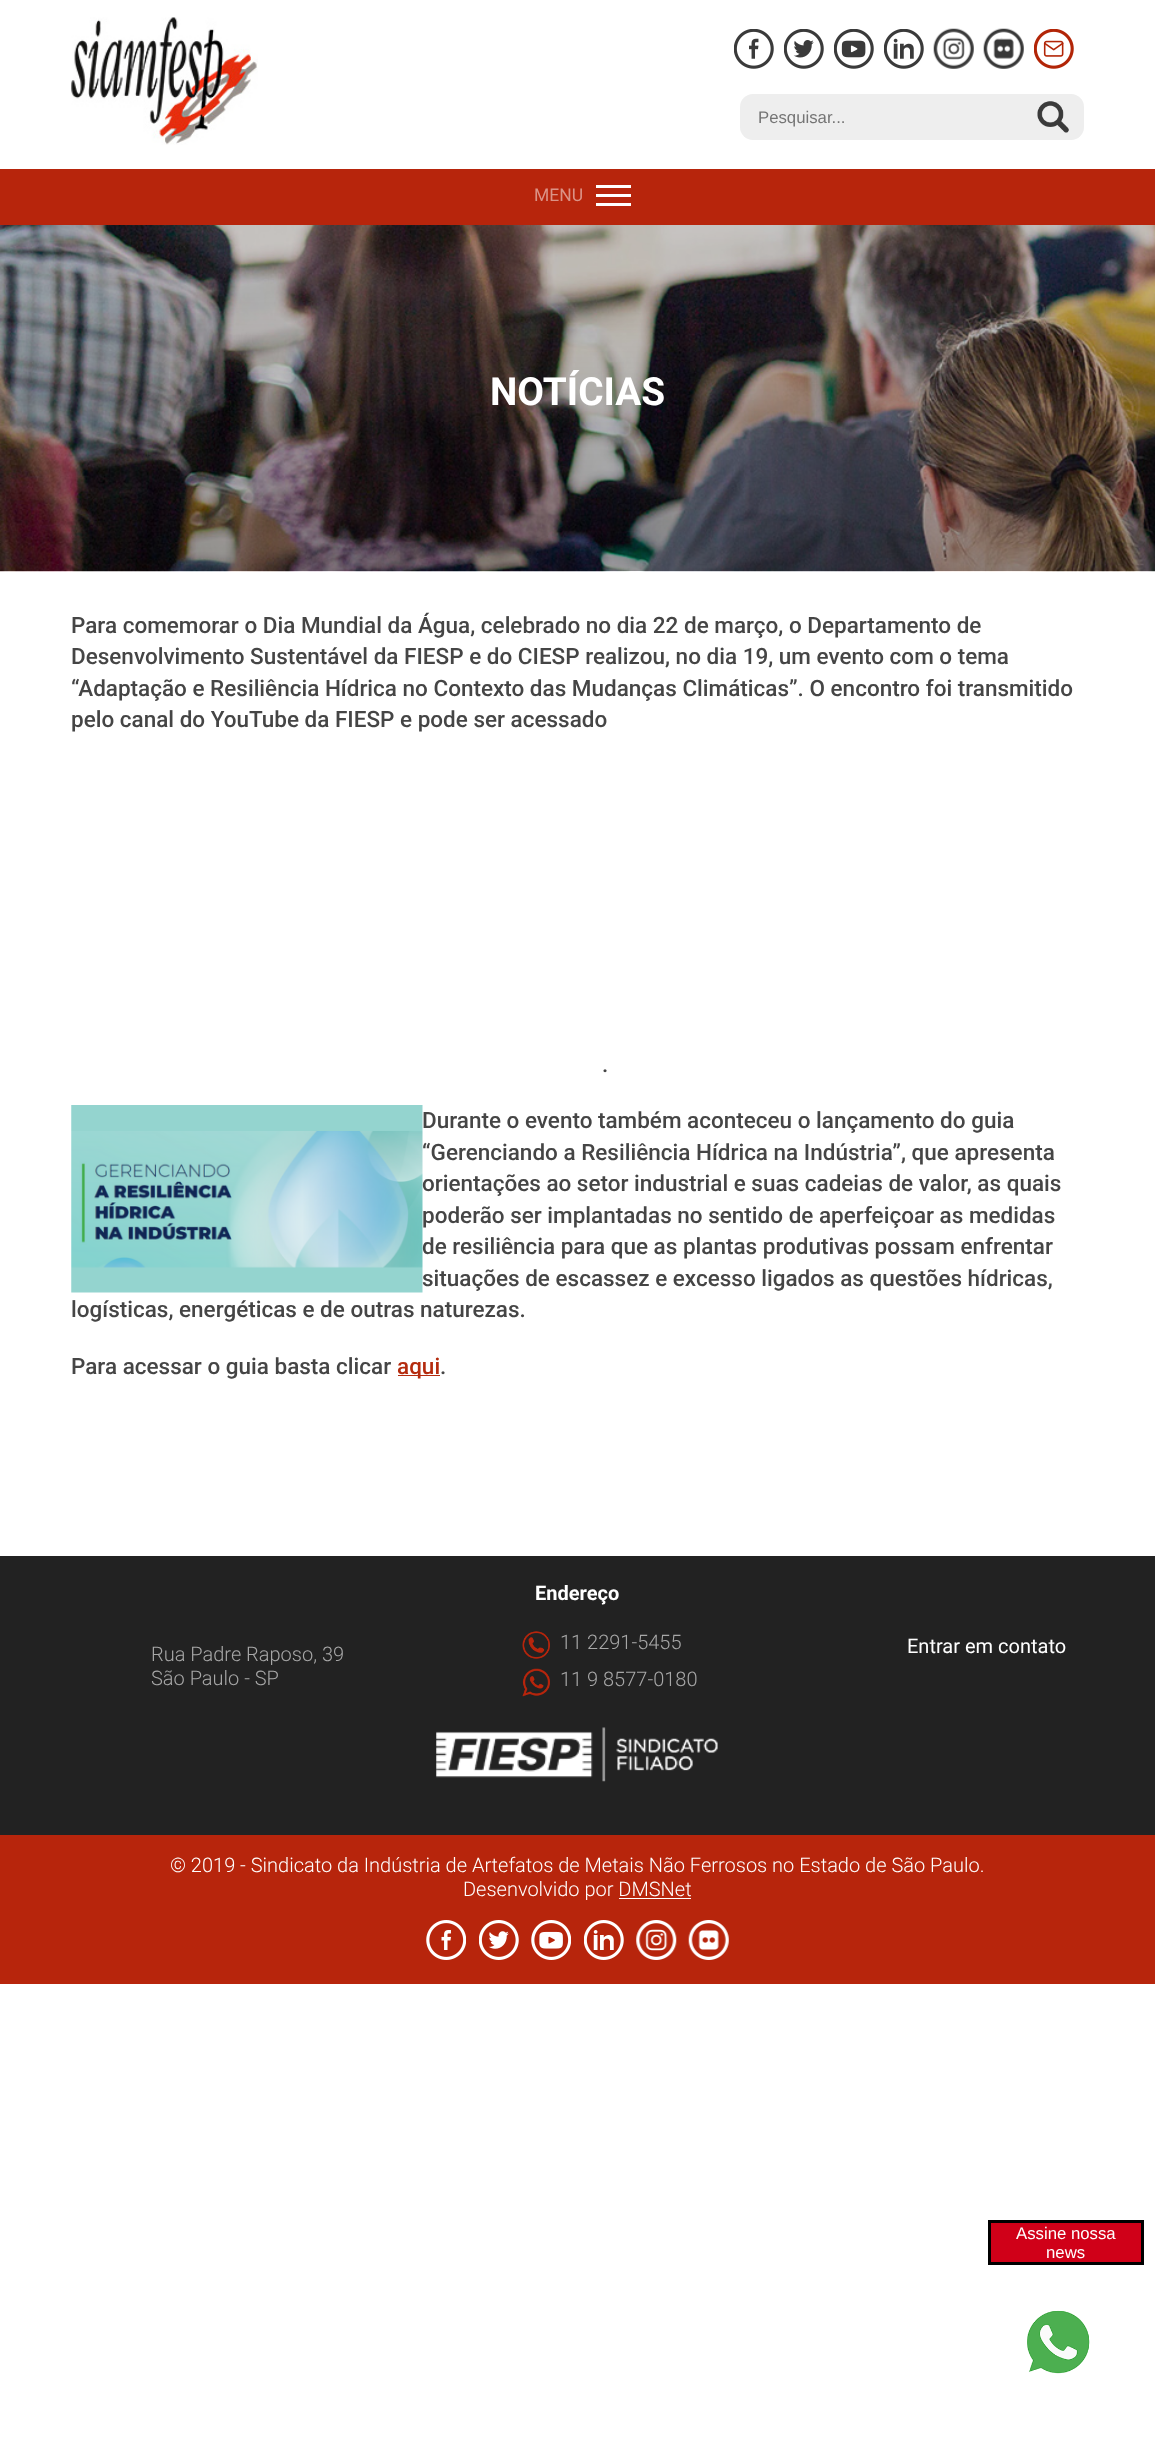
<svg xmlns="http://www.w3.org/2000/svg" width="1155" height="2438">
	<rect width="100%" height="100%" fill="#FFFFFF" />
	<image x="71" y="17" width="187" height="128" href="assets/img1.png" />
	<image x="734" y="29" width="40" height="40" href="assets/img2.png" />
	<image x="784" y="29" width="40" height="40" href="assets/img3.png" />
	<image x="834" y="29" width="40" height="40" href="assets/img4.png" />
	<image x="884" y="29" width="40" height="40" href="assets/img5.png" />
	<image x="933" y="28" width="41" height="41" href="assets/img6.png" />
	<image x="983" y="28" width="41" height="41" href="assets/img7.png" />
	<image x="1034" y="29" width="40" height="40" href="assets/img8.png" />
	<rect x="740" y="94" width="344" height="46" rx="13" fill="#EEEEEE" />
	<text x="758" y="123" font-family="Liberation Sans" font-size="16.75" fill="#757575">Pesquisar...</text>
	<image x="1037" y="101" width="32" height="32" href="assets/img9.png" />
	<rect x="0" y="169" width="1155" height="56" fill="#B7250C" />
	<rect x="596" y="194" width="35" height="3" fill="#FFFFFF" />
	<rect x="596" y="185" width="35" height="3" fill="#FFFFFF" />
	<text x="534" y="201" font-family="Roboto" font-size="17.5" fill="#DB9286">MENU</text>
	<rect x="596" y="203" width="35" height="3" fill="#FFFFFF" />
	<image x="0" y="225" width="1155" height="347" href="assets/img10.png" />
	<text x="490" y="405" font-family="Roboto" font-size="38.75" font-weight="700" fill="#FFFFFF">NOTÍCIAS</text>
	<g font-family="Roboto" font-size="22.5" font-weight="500" fill="#454545">
		<text x="71" y="633">Para comemorar o Dia Mundial da Água, celebrado no dia 22 de março, o Departamento de</text>
		<text x="71" y="664">Desenvolvimento Sustentável da FIESP e do CIESP realizou, no dia 19, um evento com o tema</text>
		<text x="71" y="696">“Adaptação e Resiliência Hídrica no Contexto das Mudanças Climáticas”. O encontro foi transmitido</text>
		<text x="71" y="727">pelo canal do YouTube da FIESP e pode ser acessado</text>
		<text x="602" y="1072">.</text>
	</g>
	<image x="71" y="1105" width="352" height="188" href="assets/img11.png" />
	<g font-family="Roboto" font-size="22.5" font-weight="500" fill="#454545">
		<text x="422" y="1128">Durante o evento também aconteceu o lançamento do guia</text>
		<text x="422" y="1160">“Gerenciando a Resiliência Hídrica na Indústria”, que apresenta</text>
		<text x="422" y="1191">orientações ao setor industrial e suas cadeias de valor, as quais</text>
		<text x="422" y="1223">poderão ser implantadas no sentido de aperfeiçoar as medidas</text>
		<text x="422" y="1254">de resiliência para que as plantas produtivas possam enfrentar</text>
		<text x="422" y="1286">situações de escassez e excesso ligados as questões hídricas,</text>
		<text x="71" y="1317">logísticas, energéticas e de outras naturezas.</text>
		<text x="71" y="1374">Para acessar o guia basta clicar</text>
	</g>
	<rect x="398" y="1375" width="42" height="1" fill="#B42B0E" />
	<text x="397" y="1374" font-family="Roboto" font-size="22.5" font-weight="500" fill="#B42B0E">aqui</text>
	<text x="440" y="1374" font-family="Roboto" font-size="22.5" font-weight="500" fill="#454545">.</text>
	<rect x="0" y="1556" width="1155" height="279" fill="#222222" />
	<text x="535" y="1600" font-family="Roboto" font-size="20" font-weight="700" fill="#FFFFFF">Endereço</text>
	<g font-family="Roboto" font-size="20" font-weight="300" fill="#A7A7A7">
		<text x="151" y="1661">Rua Padre Raposo, 39</text>
		<text x="151" y="1685">São Paulo - SP</text>
	</g>
	<image x="522" y="1631" width="28" height="28" href="assets/img12.png" />
	<text x="560" y="1649" font-family="Roboto" font-size="20" font-weight="300" fill="#A7A7A7">11 2291-5455</text>
	<image x="522" y="1668" width="28" height="29" href="assets/img13.png" />
	<text x="560" y="1686" font-family="Roboto" font-size="20" font-weight="300" fill="#A7A7A7">11 9 8577-0180</text>
	<text x="907" y="1653" font-family="Roboto" font-size="20" fill="#FFFFFF">Entrar em contato</text>
	<image x="436" y="1727" width="282" height="55" href="assets/img14.png" />
	<rect x="0" y="1835" width="1155" height="149" fill="#B7250C" />
	<g font-family="Roboto" font-size="20" font-weight="300" fill="#FFFFFF">
		<text x="170" y="1872">© 2019 - Sindicato da Indústria de Artefatos de Metais Não Ferrosos no Estado de São Paulo.</text>
		<text x="463" y="1896">Desenvolvido por DMSNet</text>
	</g>
	<rect x="619" y="1898" width="72" height="1" fill="#FFFFFF" />
	<image x="426" y="1920" width="40" height="40" href="assets/img15.png" />
	<image x="479" y="1920" width="40" height="40" href="assets/img16.png" />
	<image x="531" y="1920" width="40" height="40" href="assets/img17.png" />
	<image x="584" y="1920" width="40" height="40" href="assets/img18.png" />
	<image x="636" y="1920" width="41" height="40" href="assets/img19.png" />
	<image x="688" y="1920" width="41" height="40" href="assets/img20.png" />
	<rect x="989.5" y="2221.5" width="153" height="42" fill="#D00018" stroke="#000000" stroke-width="3" />
	<g font-family="Liberation Sans" font-size="16.75" fill="#FFFFFF">
		<text x="1016" y="2239">Assine nossa</text>
		<text x="1046" y="2258">news</text>
	</g>
	<image x="1027" y="2310" width="63" height="64" href="assets/img21.png" />
</svg>
